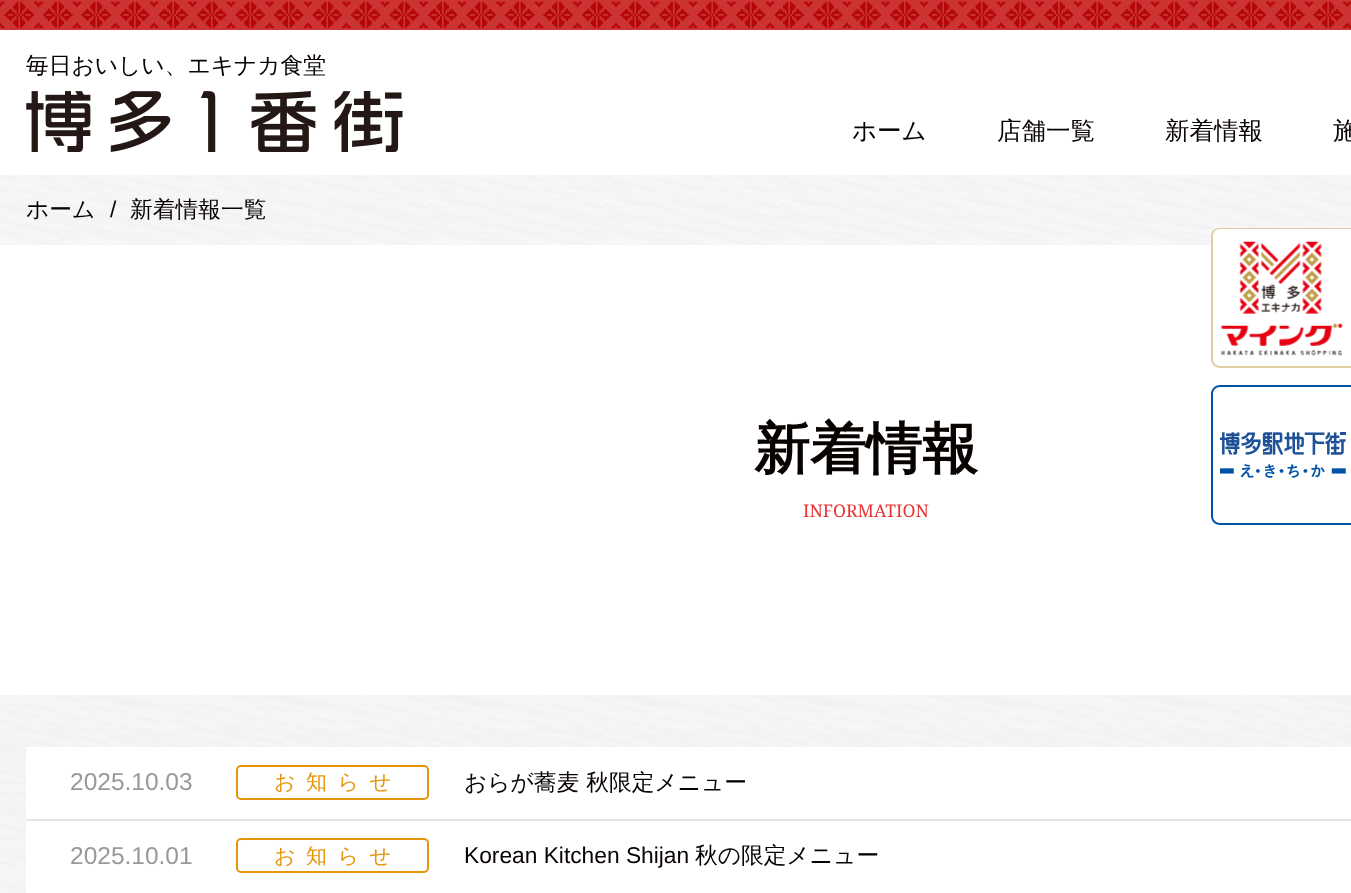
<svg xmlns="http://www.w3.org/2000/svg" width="1351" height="893">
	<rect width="100%" height="100%" fill="#FFFFFF" />
	<rect x="0" y="0" width="1351" height="30" fill="#CC3333" />
	<image x="0" y="1" width="1351" height="27" href="assets/img1.png" />
	<text x="26" y="73" font-family="WenQuanYi Zen Hei" font-size="22.75" font-weight="500" fill="#080200">毎日おいしい、エキナカ食堂</text>
	<image x="26" y="91" width="377" height="61" href="assets/img2.png" />
	<g font-family="WenQuanYi Zen Hei" font-size="24.5" font-weight="500" fill="#080200">
		<text x="852" y="139">ホーム</text>
		<text x="997" y="139">店舗一覧</text>
		<text x="1165" y="139">新着情報</text>
		<text x="1333" y="139">施</text>
	</g>
	<image x="0" y="175" width="1351" height="70" href="assets/img3.png" />
	<text x="26" y="217" font-family="WenQuanYi Zen Hei" font-size="22.75" font-weight="500" fill="#080200">ホーム</text>
	<text x="110" y="217" font-family="Liberation Sans" font-size="22.75" fill="#080200">/</text>
	<text x="130" y="217" font-family="WenQuanYi Zen Hei" font-size="22.75" font-weight="500" fill="#080200">新着情報一覧</text>
	<text x="754" y="468" font-family="WenQuanYi Zen Hei" font-size="56" font-weight="700" fill="#080200">新着情報</text>
	<text x="803" y="517" font-family="Noto Serif" font-size="17.5" fill="#E83437">INFORMATION</text>
	<image x="0" y="695" width="1351" height="198" href="assets/img4.png" />
	<rect x="26" y="747" width="1325" height="146" fill="#FFFFFF" />
	<rect x="26" y="819" width="1325" height="2" fill="#E6E6E6" />
	<text x="70" y="790" font-family="Liberation Sans" font-size="24.5" fill="#999999">2025.10.03</text>
	<rect x="237" y="766" width="191" height="33" rx="4" fill="none" stroke="#E59509" stroke-width="2" />
	<text x="274" y="789" font-family="WenQuanYi Zen Hei" font-size="21" font-weight="500" letter-spacing="10.5" fill="#E59509">お知らせ</text>
	<text x="464" y="790" font-family="WenQuanYi Zen Hei" font-size="22.75" font-weight="500" fill="#080200">おらが蕎麦 秋限定メニュー</text>
	<text x="70" y="864" font-family="Liberation Sans" font-size="24.5" fill="#999999">2025.10.01</text>
	<rect x="237" y="839" width="191" height="33" rx="4" fill="none" stroke="#E59509" stroke-width="2" />
	<text x="274" y="863" font-family="WenQuanYi Zen Hei" font-size="21" font-weight="500" letter-spacing="10.5" fill="#E59509">お知らせ</text>
	<text x="464" y="863" font-family="Liberation Sans" font-size="22.75" fill="#080200">Korean Kitchen Shijan</text>
	<text x="695" y="863" font-family="WenQuanYi Zen Hei" font-size="22.75" font-weight="500" fill="#080200">秋の限定メニュー</text>
	<path d="M1220 228H1351V368H1220C1215 368 1211 364 1211 359V237C1211 232 1215 228 1220 228Z" fill="#FFFFFF" />
	<path d="M1220 228H1351V368H1220C1215 368 1211 364 1211 359V236C1211 231 1215 228 1220 228ZM1220 229H1351V366H1220C1216 366 1213 363 1213 359V236C1213 232 1216 229 1220 229Z" fill="#E0CEA3" fill-rule="evenodd" />
	<image x="1221" y="241" width="122" height="115" href="assets/img5.png" />
	<path d="M1220 385H1351V525H1220C1215 525 1211 521 1211 516V394C1211 389 1215 385 1220 385ZM1220 387H1351V523H1220C1216 523 1213 520 1213 516V394C1213 390 1216 387 1220 387Z" fill="#0054A5" fill-rule="evenodd" />
	<image x="1220" y="432" width="126" height="46" href="assets/img6.png" />
</svg>
